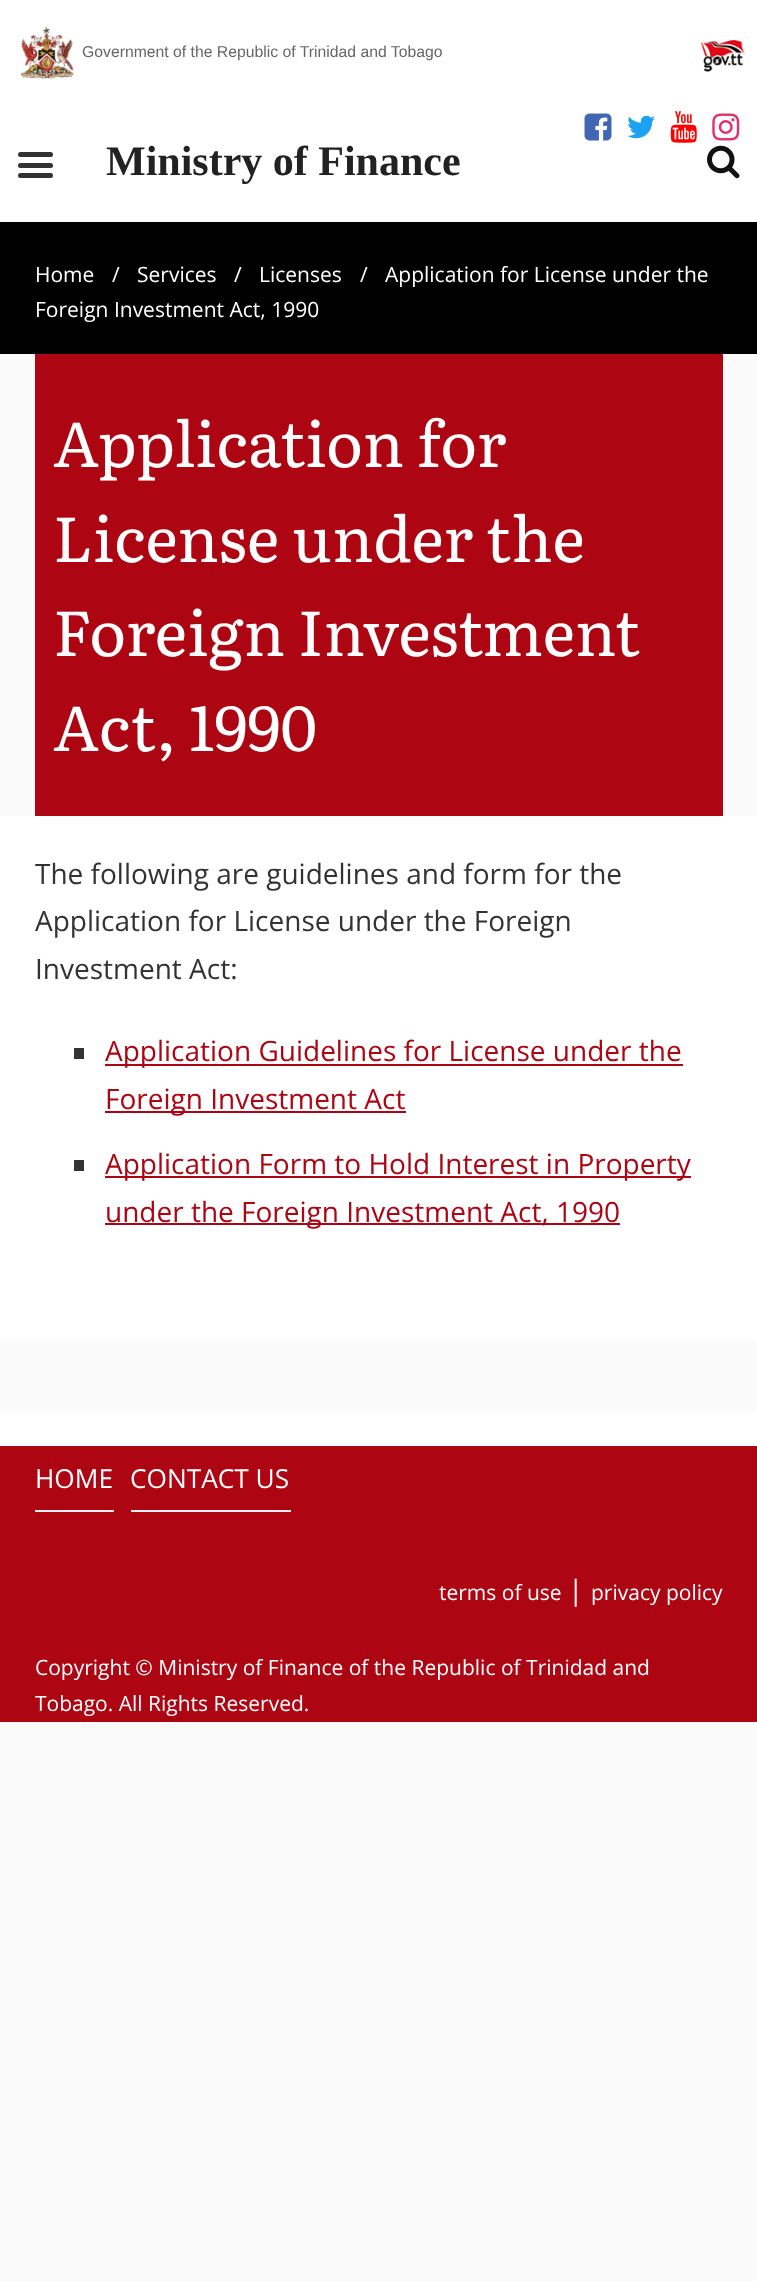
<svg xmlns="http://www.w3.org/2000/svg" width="757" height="2281">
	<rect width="100%" height="100%" fill="#FAFAFA" />
	<rect x="0" y="0" width="757" height="222" fill="#FFFFFF" />
	<image x="21" y="27" width="53" height="52" href="assets/img1.png" />
	<text x="82" y="57" font-family="Liberation Sans" font-size="15.75" fill="#666666">Government of the Republic of Trinidad and Tobago</text>
	<image x="700" y="40" width="45" height="32" href="assets/img2.png" />
	<rect x="18" y="152" width="35" height="5" rx="2.5" fill="#333333" />
	<rect x="18" y="163" width="35" height="5" rx="2.5" fill="#333333" />
	<rect x="18" y="173" width="35" height="5" rx="2.5" fill="#333333" />
	<text x="106" y="175" font-family="Liberation Serif" font-size="42" font-weight="700" fill="#222222">Ministry of Finance</text>
	<image x="584" y="113" width="28" height="28" href="assets/img3.png" />
	<image x="627" y="115" width="28" height="24" href="assets/img4.png" />
	<image x="670" y="111" width="27" height="32" href="assets/img5.png" />
	<image x="712" y="113" width="28" height="28" href="assets/img6.png" />
	<image x="707" y="145" width="33" height="34" href="assets/img7.png" />
	<rect x="0" y="222" width="757" height="132" fill="#000000" />
	<g font-family="Open Sans" font-size="21" fill="#FFFFFF">
		<text x="35" y="282">Home</text>
		<text x="112" y="282">/</text>
		<text x="137" y="282">Services</text>
		<text x="234" y="282">/</text>
		<text x="259" y="282">Licenses</text>
		<text x="360" y="282">/</text>
		<text x="385" y="282">Application for License under the</text>
		<text x="35" y="317">Foreign Investment Act, 1990</text>
	</g>
	<rect x="35" y="354" width="688" height="462" fill="#AD0512" />
	<g font-family="Literata" font-size="63" fill="#FFFFFF">
		<text x="53" y="467">Application for</text>
		<text x="53" y="562">License under the</text>
		<text x="53" y="656">Foreign Investment</text>
		<text x="53" y="751">Act, 1990</text>
	</g>
	<rect x="0" y="816" width="757" height="525" fill="#FFFFFF" />
	<g font-family="Open Sans" font-size="28" fill="#333333">
		<text x="35" y="884">The following are guidelines and form for the</text>
		<text x="35" y="931">Application for License under the Foreign</text>
		<text x="35" y="979">Investment Act:</text>
	</g>
	<rect x="74" y="1048" width="10" height="11" fill="#333333" />
	<rect x="105" y="1064" width="578" height="2" fill="#AD0512" />
	<text x="105" y="1061" font-family="Open Sans" font-size="28" fill="#AD0512">Application Guidelines for License under the</text>
	<rect x="105" y="1111" width="301" height="2" fill="#AD0512" />
	<text x="105" y="1109" font-family="Open Sans" font-size="28" fill="#AD0512">Foreign Investment Act</text>
	<rect x="74" y="1160" width="10" height="11" fill="#333333" />
	<rect x="105" y="1176" width="586" height="2" fill="#AD0512" />
	<text x="105" y="1174" font-family="Open Sans" font-size="28" fill="#AD0512">Application Form to Hold Interest in Property</text>
	<rect x="105" y="1223" width="515" height="2" fill="#AD0512" />
	<text x="105" y="1222" font-family="Open Sans" font-size="28" fill="#AD0512">under the Foreign Investment Act, 1990</text>
	<rect x="0" y="1411" width="757" height="35" fill="#FFFFFF" />
	<rect x="0" y="1446" width="757" height="276" fill="#AD0512" />
	<rect x="35" y="1510" width="79" height="2" fill="#EEEEEE" />
	<text x="35" y="1488" font-family="Open Sans" font-size="26.25" fill="#FFFFFF">HOME</text>
	<rect x="131" y="1510" width="160" height="2" fill="#EEEEEE" />
	<text x="130" y="1488" font-family="Open Sans" font-size="26.25" fill="#FFFFFF">CONTACT US</text>
	<text x="439" y="1600" font-family="Open Sans" font-size="21" fill="#FFFFFF">terms of use</text>
	<text x="568" y="1600" font-family="Open Sans" font-size="28" fill="#FFFFFF">|</text>
	<g font-family="Open Sans" font-size="21" fill="#FFFFFF">
		<text x="591" y="1600">privacy policy</text>
		<text x="35" y="1675">Copyright © Ministry of Finance of the Republic of Trinidad and</text>
		<text x="35" y="1711">Tobago. All Rights Reserved.</text>
	</g>
</svg>
